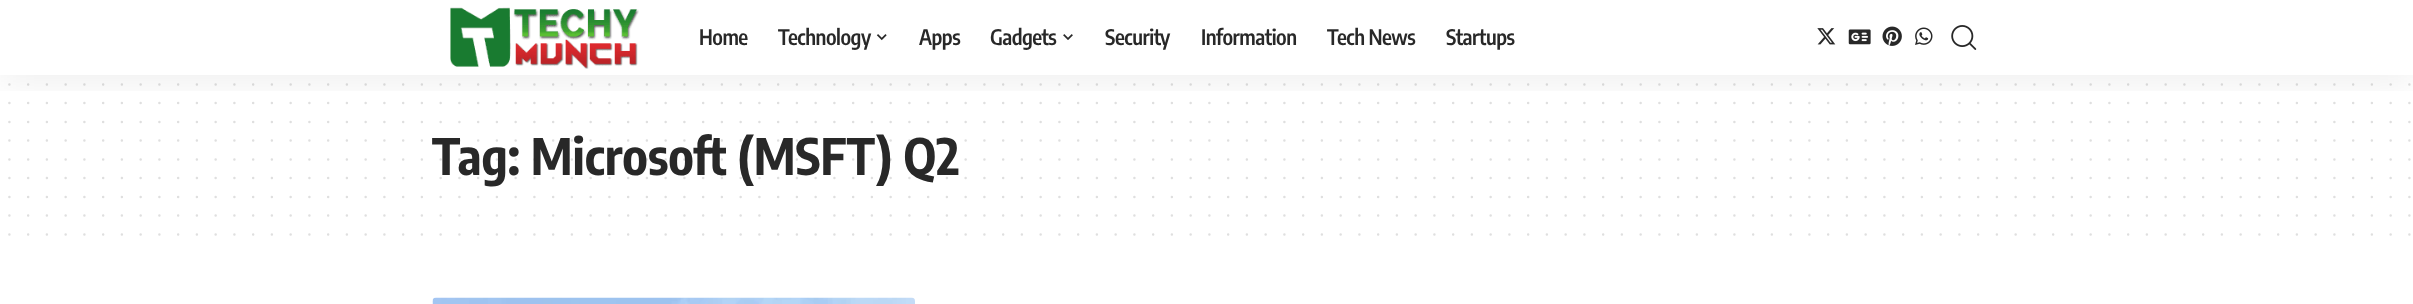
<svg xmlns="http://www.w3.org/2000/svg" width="2413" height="304">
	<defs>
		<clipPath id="clip1"><rect x="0" y="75" width="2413" height="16" /></clipPath>
	</defs>
	<rect width="100%" height="100%" fill="#FFFFFF" />
	<path d="M9.4 84.4H2409.6" fill="none" stroke="#DFDFDF" stroke-width="2.5" stroke-linecap="round" stroke-dasharray="0 18.75" />
	<path d="M9.4 103.1H2409.6" fill="none" stroke="#DFDFDF" stroke-width="2.5" stroke-linecap="round" stroke-dasharray="0 18.75" />
	<path d="M9.4 121.9H2409.6" fill="none" stroke="#DFDFDF" stroke-width="2.5" stroke-linecap="round" stroke-dasharray="0 18.75" />
	<g clip-path="url(#clip1)">
		<rect x="0" y="5" width="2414" height="75" fill="#000000" fill-opacity="0.07" filter="blur(19px)" />
	</g>
	<image x="450" y="7" width="189" height="62" href="assets/img1.png" />
	<g font-family="Encode Sans Condensed" font-size="21.25" font-weight="600" letter-spacing="-0.5" fill="#282828">
		<text x="699" y="45">Home</text>
		<text x="778" y="45">Technology</text>
	</g>
	<image x="876" y="34" width="11" height="7" href="assets/img2.png" />
	<g font-family="Encode Sans Condensed" font-size="21.25" font-weight="600" letter-spacing="-0.5" fill="#282828">
		<text x="919" y="45">Apps</text>
		<text x="990" y="45">Gadgets</text>
	</g>
	<image x="1063" y="34" width="10" height="6" href="assets/img3.png" />
	<g font-family="Encode Sans Condensed" font-size="21.25" font-weight="600" letter-spacing="-0.5" fill="#282828">
		<text x="1105" y="45">Security</text>
		<text x="1201" y="45">Information</text>
		<text x="1327" y="45">Tech News</text>
		<text x="1446" y="45">Startups</text>
	</g>
	<image x="1817" y="28" width="19" height="17" href="assets/img4.png" />
	<image x="1848" y="29" width="23" height="16" href="assets/img5.png" />
	<image x="1882" y="26" width="20" height="20" href="assets/img6.png" />
	<image x="1915" y="27" width="18" height="18" href="assets/img7.png" />
	<image x="1951" y="25" width="26" height="25" href="assets/img8.png" />
	<text x="432" y="175" font-family="Encode Sans Condensed" font-size="50" font-weight="700" fill="#282828">Tag: Microsoft (MSFT) Q2</text>
	<path d="M9.4 140.6H2409.6" fill="none" stroke="#282828" stroke-opacity="0.15" stroke-width="2.5" stroke-linecap="round" stroke-dasharray="0 18.75" />
	<path d="M9.4 159.4H2409.6" fill="none" stroke="#282828" stroke-opacity="0.15" stroke-width="2.5" stroke-linecap="round" stroke-dasharray="0 18.75" />
	<path d="M9.4 178.1H2409.6" fill="none" stroke="#282828" stroke-opacity="0.15" stroke-width="2.5" stroke-linecap="round" stroke-dasharray="0 18.75" />
	<path d="M9.4 196.9H2409.6" fill="none" stroke="#DFDFDF" stroke-width="2.5" stroke-linecap="round" stroke-dasharray="0 18.75" />
	<path d="M9.4 215.6H2409.6" fill="none" stroke="#DFDFDF" stroke-width="2.5" stroke-linecap="round" stroke-dasharray="0 18.75" />
	<path d="M9.4 234.4H2409.6" fill="none" stroke="#DFDFDF" stroke-width="2.5" stroke-linecap="round" stroke-dasharray="0 18.75" />
	<image x="432" y="297" width="483" height="7" href="assets/img9.png" />
</svg>
